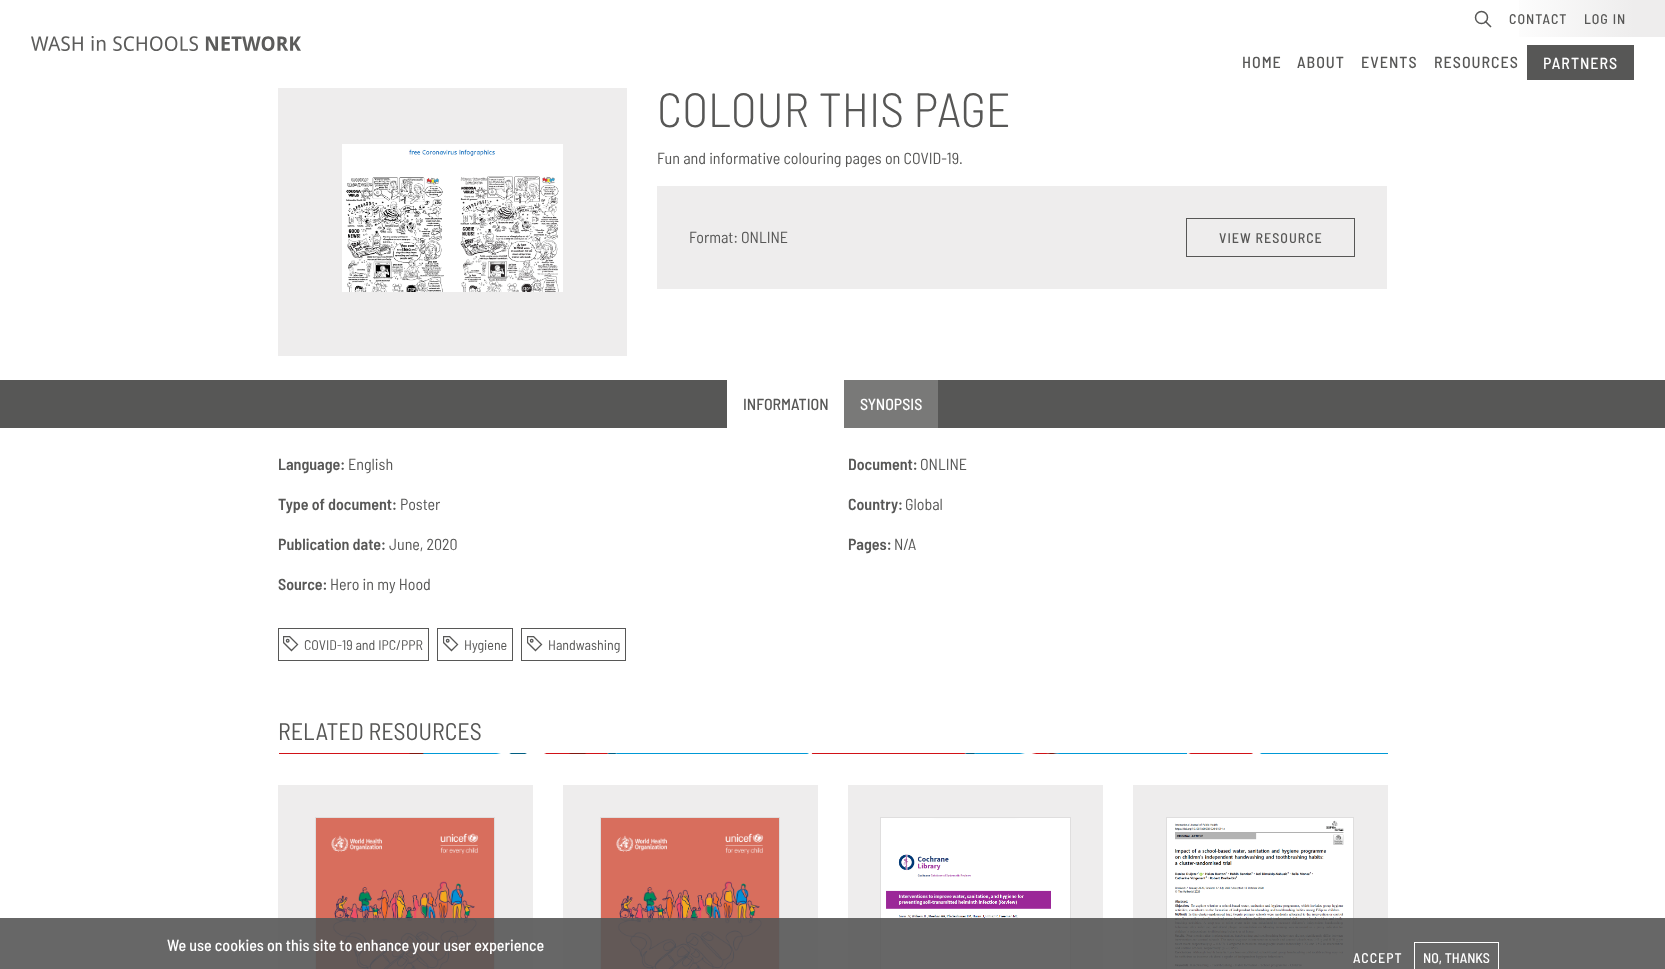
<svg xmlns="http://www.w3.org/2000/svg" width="1665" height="969">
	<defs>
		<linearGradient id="g1" gradientUnits="userSpaceOnUse" x1="1501" y1="19" x2="1634" y2="18"><stop offset="0" stop-color="#FFFFFF" /><stop offset="1" stop-color="#EEEDED" /></linearGradient>
		<clipPath id="clip1"><rect x="283" y="636" width="16" height="16" /></clipPath>
		<clipPath id="clip2"><rect x="443" y="636" width="16" height="16" /></clipPath>
		<clipPath id="clip3"><rect x="527" y="636" width="16" height="16" /></clipPath>
	</defs>
	<rect width="100%" height="100%" fill="#FFFFFF" />
	<image x="31" y="36" width="270" height="15" href="assets/img1.png" />
	<path d="M1490.5 26.5L1485.5 21.5" fill="none" stroke="#575756" stroke-width="1.5" stroke-linecap="square" />
	<circle cx="1481.5" cy="17.5" r="6" fill="none" stroke="#575756" stroke-width="1.5" />
	<rect x="1519" y="0" width="115" height="37" fill="url(#g1)" />
	<g font-family="Barlow Semi Condensed" font-size="14" font-weight="500" letter-spacing="1" fill="#575756">
		<text x="1509" y="24">CONTACT</text>
		<text x="1584" y="24">LOG IN</text>
	</g>
	<rect x="1634" y="0" width="31" height="37" fill="#EEEDED" />
	<g font-family="Barlow Semi Condensed" font-size="16" font-weight="500" letter-spacing="1" fill="#575756">
		<text x="1242" y="68">HOME</text>
		<text x="1297" y="68">ABOUT</text>
		<text x="1361" y="68">EVENTS</text>
		<text x="1434" y="68">RESOURCES</text>
	</g>
	<rect x="1527" y="45" width="107" height="35" fill="#575756" />
	<text x="1543" y="69" font-family="Barlow Semi Condensed" font-size="16" font-weight="500" letter-spacing="1" fill="#FFFFFF">PARTNERS</text>
	<rect x="278" y="88" width="349" height="268" fill="#EEEDED" />
	<image x="342" y="144" width="221" height="148" href="assets/img2.png" />
	<text x="657" y="127" font-family="Barlow Semi Condensed" font-size="48" font-weight="300" fill="#575756">COLOUR THIS PAGE</text>
	<text x="657" y="164" font-family="Barlow Semi Condensed" font-size="16" fill="#575756">Fun and informative colouring pages on COVID-19.</text>
	<rect x="657" y="186" width="730" height="103" fill="#EEEDED" />
	<text x="689" y="243" font-family="Barlow Semi Condensed" font-size="16" fill="#575756">Format: ONLINE</text>
	<rect x="1186.5" y="218.5" width="168" height="38" fill="none" stroke="#575756" />
	<text x="1219" y="243" font-family="Barlow Semi Condensed" font-size="14" font-weight="500" letter-spacing="1" fill="#575756">VIEW RESOURCE</text>
	<rect x="0" y="380" width="1665" height="48" fill="#575756" />
	<rect x="727" y="380" width="117" height="48" fill="#FFFFFF" />
	<text x="743" y="410" font-family="Barlow Semi Condensed" font-size="16" font-weight="500" fill="#575756">INFORMATION</text>
	<rect x="844" y="380" width="94" height="48" fill="#797978" />
	<text x="860" y="410" font-family="Barlow Semi Condensed" font-size="16" font-weight="500" fill="#FFFFFF">SYNOPSIS</text>
	<text x="278" y="470" font-family="Barlow Semi Condensed" font-size="16" font-weight="600" fill="#575756">Language:</text>
	<text x="348" y="470" font-family="Barlow Semi Condensed" font-size="16" fill="#575756">English</text>
	<text x="278" y="510" font-family="Barlow Semi Condensed" font-size="16" font-weight="600" fill="#575756">Type of document:</text>
	<text x="400" y="510" font-family="Barlow Semi Condensed" font-size="16" fill="#575756">Poster</text>
	<text x="278" y="550" font-family="Barlow Semi Condensed" font-size="16" font-weight="600" fill="#575756">Publication date:</text>
	<text x="389" y="550" font-family="Barlow Semi Condensed" font-size="16" fill="#575756">June, 2020</text>
	<text x="278" y="590" font-family="Barlow Semi Condensed" font-size="16" font-weight="600" fill="#575756">Source:</text>
	<text x="330" y="590" font-family="Barlow Semi Condensed" font-size="16" fill="#575756">Hero in my Hood</text>
	<text x="848" y="470" font-family="Barlow Semi Condensed" font-size="16" font-weight="600" fill="#575756">Document:</text>
	<text x="920" y="470" font-family="Barlow Semi Condensed" font-size="16" fill="#575756">ONLINE</text>
	<text x="848" y="510" font-family="Barlow Semi Condensed" font-size="16" font-weight="600" fill="#575756">Country:</text>
	<text x="905" y="510" font-family="Barlow Semi Condensed" font-size="16" fill="#575756">Global</text>
	<text x="848" y="550" font-family="Barlow Semi Condensed" font-size="16" font-weight="600" fill="#575756">Pages:</text>
	<text x="894" y="550" font-family="Barlow Semi Condensed" font-size="16" fill="#575756">N/A</text>
	<rect x="278.5" y="628.5" width="150" height="32" fill="none" stroke="#575756" />
	<g clip-path="url(#clip1)">
		<path d="M291.5 650.5L297.5 644.5L289.5 636.5H283.5V642.5Z" fill="none" stroke="#575756" stroke-width="1.3" stroke-linecap="square" />
	</g>
	<circle cx="287.7" cy="640.7" r="1.3" fill="none" stroke="#575756" stroke-width="1.3" />
	<text x="304" y="650" font-family="Barlow Semi Condensed" font-size="14" fill="#575756">COVID-19 and IPC/PPR</text>
	<rect x="437.5" y="628.5" width="75" height="32" fill="none" stroke="#575756" />
	<g clip-path="url(#clip2)">
		<path d="M451.5 650.5L457.5 644.5L449.5 636.5H443.5V642.5Z" fill="none" stroke="#575756" stroke-width="1.3" stroke-linecap="square" />
	</g>
	<circle cx="447.7" cy="640.7" r="1.3" fill="none" stroke="#575756" stroke-width="1.3" />
	<text x="464" y="650" font-family="Barlow Semi Condensed" font-size="14" fill="#575756">Hygiene</text>
	<rect x="521.5" y="628.5" width="104" height="32" fill="none" stroke="#575756" />
	<g clip-path="url(#clip3)">
		<path d="M535.5 650.5L541.5 644.5L533.5 636.5H527.5V642.5Z" fill="none" stroke="#575756" stroke-width="1.3" stroke-linecap="square" />
	</g>
	<circle cx="531.7" cy="640.7" r="1.3" fill="none" stroke="#575756" stroke-width="1.3" />
	<text x="548" y="650" font-family="Barlow Semi Condensed" font-size="14" fill="#575756">Handwashing</text>
	<text x="278" y="740" font-family="Barlow Semi Condensed" font-size="24" fill="#575756">RELATED RESOURCES</text>
	<image x="279" y="753" width="1109" height="1" href="assets/img3.png" />
	<rect x="278" y="785" width="255" height="184" fill="#EEEDED" />
	<rect x="315.5" y="817.5" width="179" height="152" fill="none" stroke="#DFDEDE" />
	<image x="316" y="818" width="178" height="151" href="assets/img4.png" />
	<rect x="563" y="785" width="255" height="184" fill="#EEEDED" />
	<rect x="600.5" y="817.5" width="179" height="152" fill="none" stroke="#DFDEDE" />
	<image x="601" y="818" width="178" height="151" href="assets/img5.png" />
	<rect x="848" y="785" width="255" height="184" fill="#EEEDED" />
	<rect x="880.5" y="817.5" width="190" height="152" fill="none" stroke="#DFDEDE" />
	<image x="881" y="818" width="189" height="151" href="assets/img6.png" />
	<rect x="1133" y="785" width="255" height="184" fill="#EEEDED" />
	<rect x="1166.5" y="817.5" width="187" height="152" fill="none" stroke="#DFDEDE" />
	<image x="1167" y="818" width="186" height="151" href="assets/img7.png" />
	<rect x="0" y="918" width="1665" height="51" fill="#575756" fill-opacity="0.9" />
	<text x="167" y="951" font-family="Barlow Semi Condensed" font-size="16" font-weight="500" fill="#FFFFFF">We use cookies on this site to enhance your user experience</text>
	<text x="1353" y="963" font-family="Barlow Semi Condensed" font-size="14" font-weight="500" letter-spacing="1" fill="#FFFFFF">ACCEPT</text>
	<rect x="1414.5" y="942.5" width="84" height="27" fill="none" stroke="#FFFFFF" />
	<text x="1423" y="963" font-family="Barlow Semi Condensed" font-size="14" font-weight="500" fill="#FFFFFF">NO, THANKS</text>
</svg>
